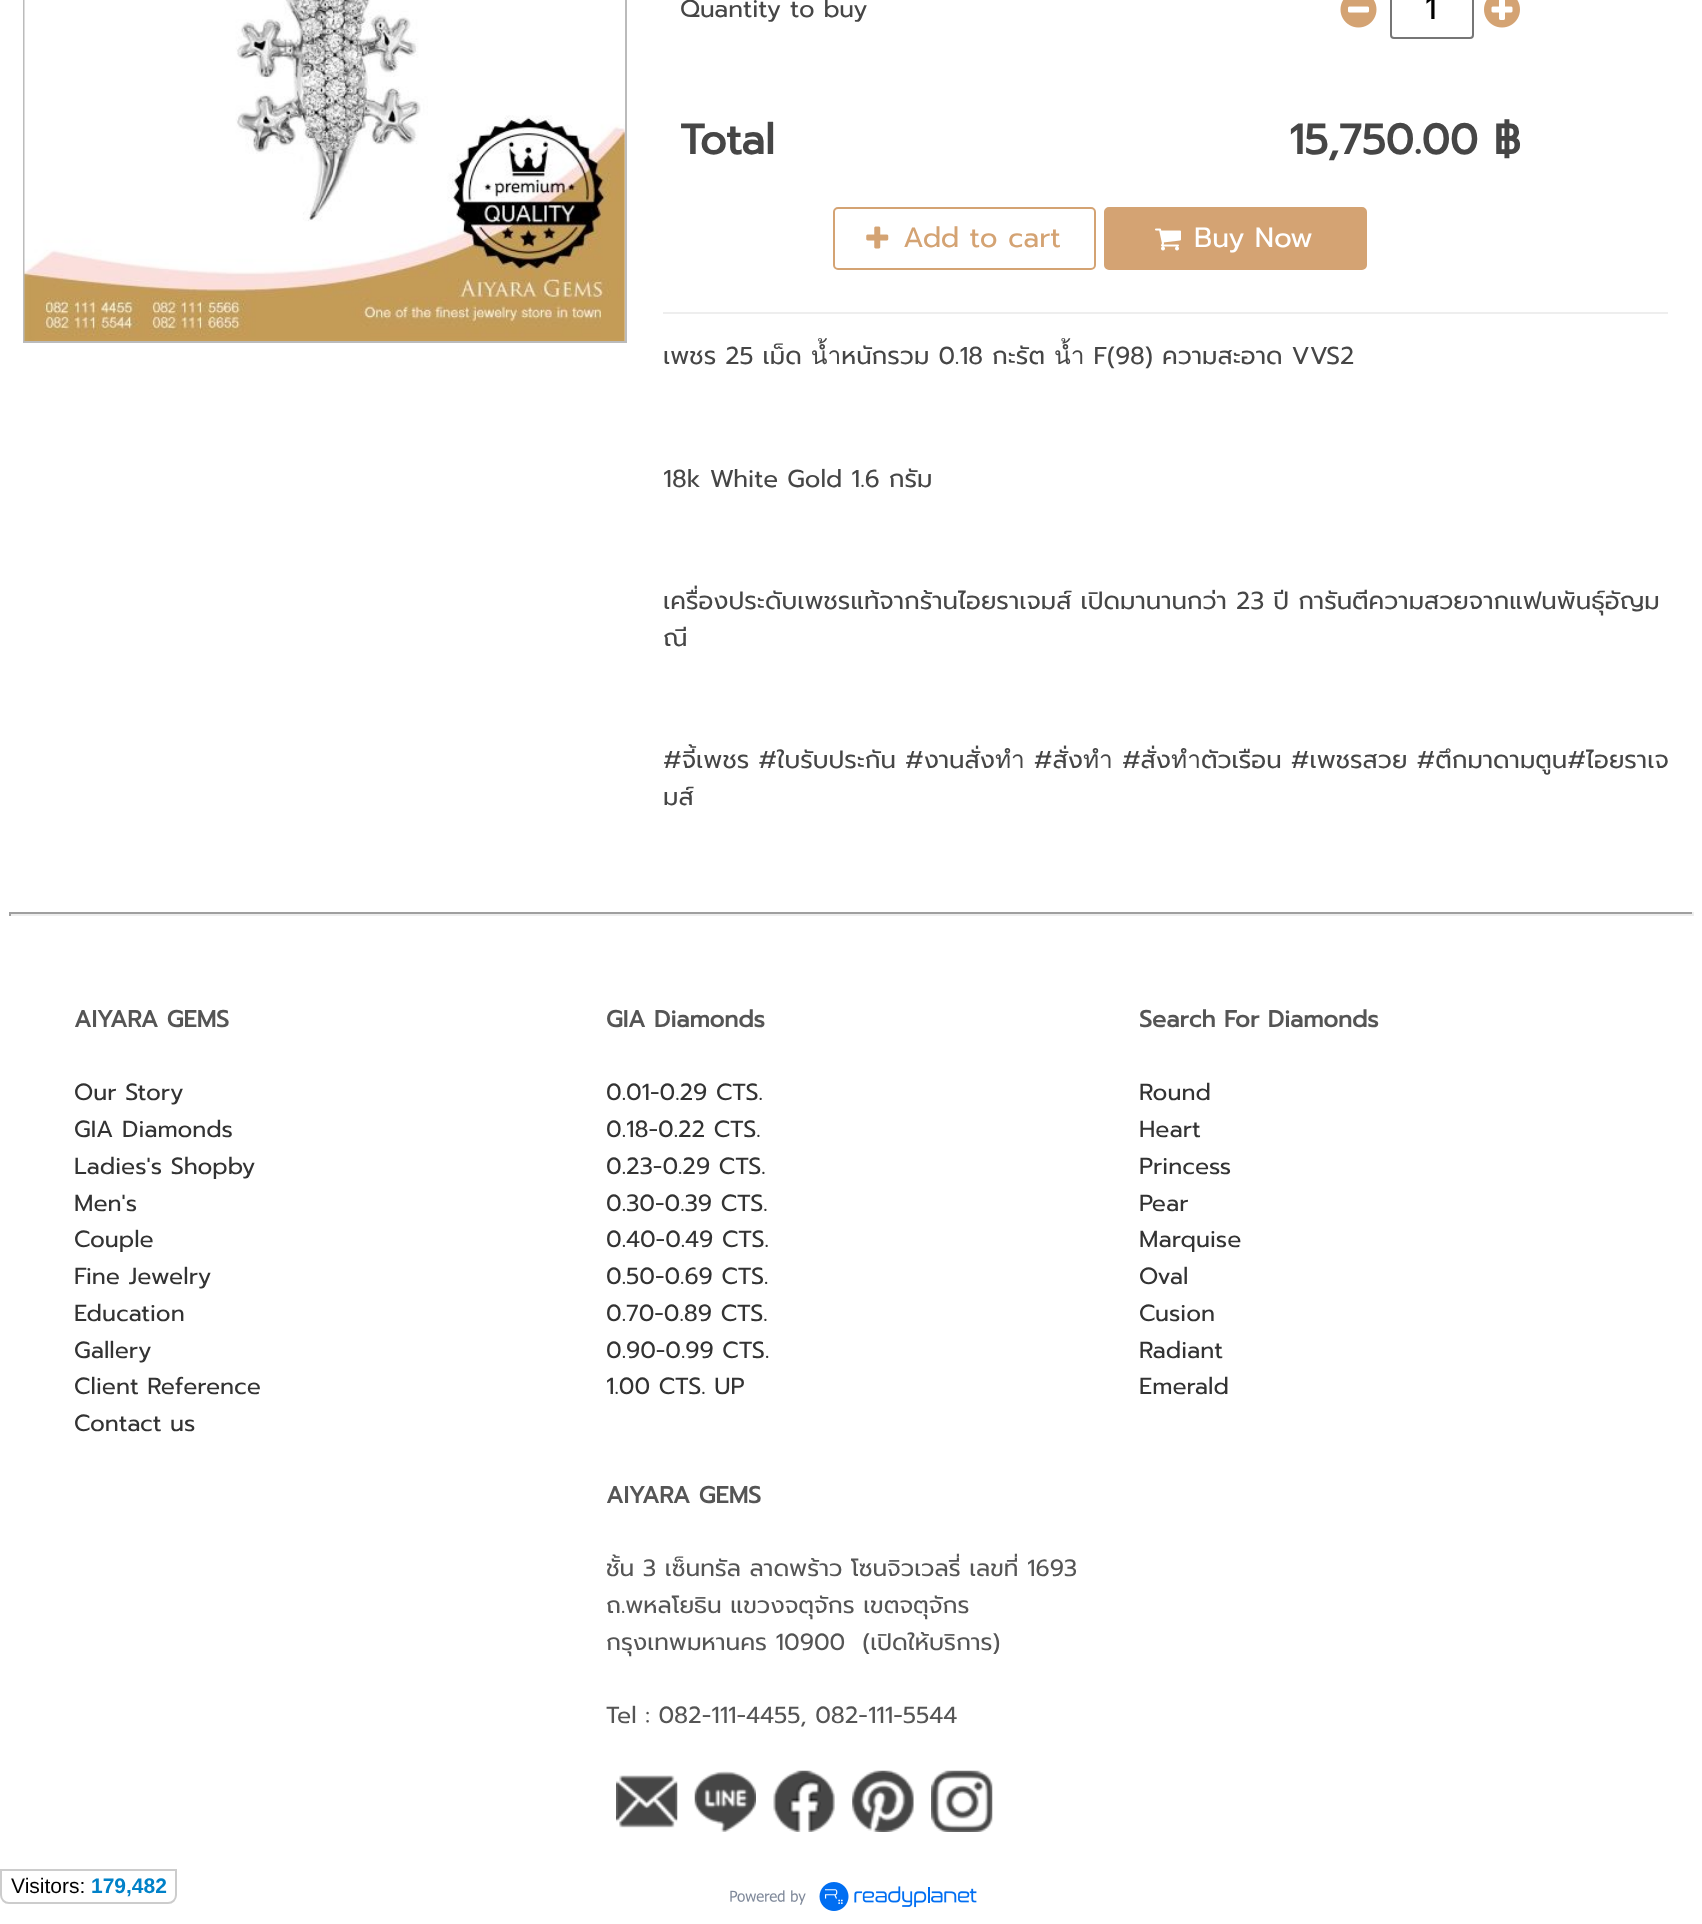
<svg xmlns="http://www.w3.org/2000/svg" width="1702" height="1924">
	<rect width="100%" height="100%" fill="#FFFFFF" />
	<rect x="24" y="-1" width="602" height="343" fill="none" stroke="#BBBBBB" stroke-width="2" />
	<image x="24" y="0" width="601" height="341" href="assets/img1.png" />
	<rect x="663" y="312" width="1005" height="2" fill="#EEEEEE" />
	<text x="680" y="17" font-family="Prompt" font-size="24.5" fill="#464646">Quantity to buy</text>
	<image x="1340" y="0" width="37" height="28" href="assets/img2.png" />
	<rect x="1391" y="-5" width="82" height="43" rx="3" fill="none" stroke="#767676" stroke-width="2" />
	<text x="1425" y="19" font-family="Prompt" font-size="32" fill="#000000">1</text>
	<image x="1484" y="0" width="36" height="28" href="assets/img3.png" />
	<g font-family="Prompt" font-size="42" font-weight="700" fill="#464646">
		<text x="680" y="154">Total</text>
		<text x="1289" y="154">15,750.00 ฿</text>
	</g>
	<rect x="834" y="208" width="261" height="61" rx="4" fill="none" stroke="#D4A373" stroke-width="2" />
	<image x="866" y="226" width="23" height="23" href="assets/img4.png" />
	<text x="903" y="247" font-family="Prompt" font-size="28" fill="#D4A373">Add to cart</text>
	<rect x="1105" y="208" width="261" height="61" rx="4" fill="#D4A373" stroke="#D4A373" stroke-width="2" />
	<image x="1155" y="228" width="26" height="23" href="assets/img5.png" />
	<text x="1194" y="247" font-family="Prompt" font-size="28" fill="#FFFFFF">Buy Now</text>
	<g font-family="Prompt" font-size="24.5" fill="#464646">
		<text x="663" y="364">เพชร 25 เม็ด น้ำหนักรวม 0.18 กะรัต น้ำ F(98) ความสะอาด VVS2</text>
		<text x="663" y="487">18k White Gold 1.6 กรัม</text>
		<text x="663" y="609">เครื่องประดับเพชรแท้จากร้านไอยราเจมส์ เปิดมานานกว่า 23 ปี การันตีความสวยจากแฟนพันธุ์อัญม</text>
		<text x="663" y="646">ณี</text>
		<text x="663" y="768">#จี้เพชร #ใบรับประกัน #งานสั่งทำ #สั่งทำ #สั่งทำตัวเรือน #เพชรสวย #ตึกมาดามตูน#ไอยราเจ</text>
		<text x="663" y="805">มส์</text>
	</g>
	<rect x="9" y="912" width="1685" height="2" fill="#9F9F9F" />
	<rect x="1692" y="912" width="2" height="4" fill="#EEEEEE" />
	<rect x="9" y="914" width="1685" height="2" fill="#EEEEEE" />
	<rect x="9" y="912" width="2" height="4" fill="#9F9F9F" />
	<text x="74" y="1027" font-family="Prompt" font-size="23.3" font-weight="700" fill="#555555">AIYARA GEMS</text>
	<g font-family="Prompt" font-size="23.3" fill="#333333">
		<text x="74" y="1100">Our Story</text>
		<text x="74" y="1137">GIA Diamonds</text>
		<text x="74" y="1174">Ladies's Shopby</text>
		<text x="74" y="1211">Men's</text>
		<text x="74" y="1247">Couple</text>
		<text x="74" y="1284">Fine Jewelry</text>
		<text x="74" y="1321">Education</text>
		<text x="74" y="1358">Gallery</text>
		<text x="74" y="1394">Client Reference</text>
		<text x="74" y="1431">Contact us</text>
	</g>
	<text x="606" y="1027" font-family="Prompt" font-size="23.3" font-weight="700" fill="#555555">GIA Diamonds</text>
	<g font-family="Prompt" font-size="23.3" fill="#333333">
		<text x="606" y="1100">0.01-0.29 CTS.</text>
		<text x="606" y="1137">0.18-0.22 CTS.</text>
		<text x="606" y="1174">0.23-0.29 CTS.</text>
		<text x="606" y="1211">0.30-0.39 CTS.</text>
		<text x="606" y="1247">0.40-0.49 CTS.</text>
		<text x="606" y="1284">0.50-0.69 CTS.</text>
		<text x="606" y="1321">0.70-0.89 CTS.</text>
		<text x="606" y="1358">0.90-0.99 CTS.</text>
		<text x="606" y="1394">1.00 CTS. UP</text>
	</g>
	<text x="1139" y="1027" font-family="Prompt" font-size="23.3" font-weight="700" fill="#555555">Search For Diamonds</text>
	<g font-family="Prompt" font-size="23.3" fill="#333333">
		<text x="1139" y="1100">Round</text>
		<text x="1139" y="1137">Heart</text>
		<text x="1139" y="1174">Princess</text>
		<text x="1139" y="1211">Pear</text>
		<text x="1139" y="1247">Marquise</text>
		<text x="1139" y="1284">Oval</text>
		<text x="1139" y="1321">Cusion</text>
		<text x="1139" y="1358">Radiant</text>
		<text x="1139" y="1394">Emerald</text>
	</g>
	<text x="606" y="1503" font-family="Prompt" font-size="23.3" font-weight="700" fill="#555555">AIYARA GEMS</text>
	<g font-family="Prompt" font-size="23.3" fill="#555555">
		<text x="606" y="1576">ชั้น 3 เซ็นทรัล ลาดพร้าว โซนจิวเวลรี่ เลขที่ 1693</text>
		<text x="606" y="1613">ถ.พหลโยธิน แขวงจตุจักร เขตจตุจักร</text>
		<text x="606" y="1650" xml:space="preserve">กรุงเทพมหานคร 10900  (เปิดให้บริการ)</text>
		<text x="606" y="1723">Tel : 082-111-4455, 082-111-5544</text>
	</g>
	<image x="616" y="1775" width="62" height="53" href="assets/img6.png" />
	<image x="694" y="1771" width="62" height="61" href="assets/img7.png" />
	<image x="773" y="1770" width="62" height="62" href="assets/img8.png" />
	<image x="852" y="1770" width="62" height="62" href="assets/img9.png" />
	<image x="931" y="1770" width="62" height="62" href="assets/img10.png" />
	<path d="M1 1870H176V1895C176 1899.5 172.5 1903 168 1903H9C4.5 1903 1 1899.5 1 1895Z" fill="none" stroke="#CCCCCC" stroke-width="2" />
	<text x="11" y="1893" font-family="Liberation Sans" font-size="21" fill="#000000">Visitors:</text>
	<text x="91" y="1893" font-family="Liberation Sans" font-size="21" font-weight="700" fill="#0081C8">179,482</text>
	<image x="730" y="1882" width="247" height="29" href="assets/img11.png" />
</svg>
